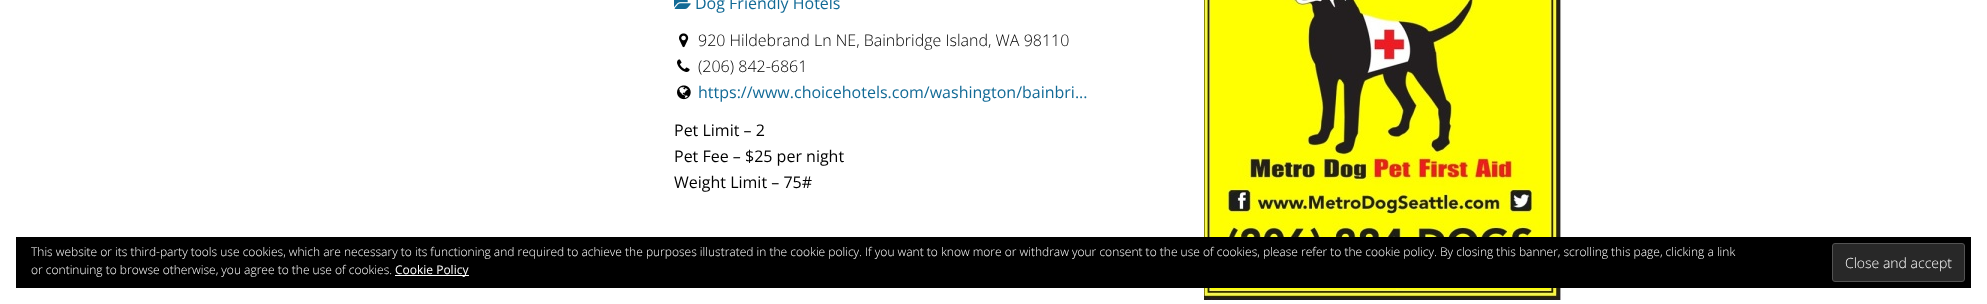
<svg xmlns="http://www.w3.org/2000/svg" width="1987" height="304">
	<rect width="100%" height="100%" fill="#FFFFFF" />
	<image x="674" y="0" width="17" height="9" href="assets/img1.png" />
	<text x="695" y="9" font-family="Open Sans" font-size="16" fill="#126A96">Dog Friendly Hotels</text>
	<image x="679" y="33" width="10" height="15" href="assets/img2.png" />
	<text x="698" y="46" font-family="Open Sans" font-size="16" font-weight="300" fill="#000000">920 Hildebrand Ln NE, Bainbridge Island, WA 98110</text>
	<image x="677" y="59" width="13" height="13" href="assets/img3.png" />
	<text x="698" y="72" font-family="Open Sans" font-size="16" font-weight="300" fill="#000000">(206) 842-6861</text>
	<image x="677" y="85" width="14" height="15" href="assets/img4.png" />
	<text x="698" y="98" font-family="Open Sans" font-size="16" fill="#126A96">https://www.choicehotels.com/washington/bainbri...</text>
	<g font-family="Open Sans" font-size="16" fill="#000000">
		<text x="674" y="136">Pet Limit – 2</text>
		<text x="674" y="162">Pet Fee – $25 per night</text>
		<text x="674" y="188">Weight Limit – 75#</text>
	</g>
	<image x="1204" y="0" width="359" height="300" href="assets/img5.png" />
	<rect x="16" y="237" width="1955" height="51" fill="#000000" />
	<g font-family="Open Sans" font-size="12" font-weight="300" fill="#FFFFFF">
		<text x="31" y="256">This website or its third-party tools use cookies, which are necessary to its functioning and required to achieve the purposes illustrated in the cookie policy. If you want to know more or withdraw your consent to the use of cookies, please refer to the cookie policy. By closing this banner, scrolling this page, clicking a link</text>
		<text x="31" y="274">or continuing to browse otherwise, you agree to the use of cookies.</text>
	</g>
	<rect x="395" y="275" width="74" height="1" fill="#FFFFFF" />
	<text x="395" y="274" font-family="Open Sans" font-size="12" fill="#FFFFFF">Cookie Policy</text>
	<rect x="1832.5" y="243.5" width="132" height="38" rx="2.5" fill="#282828" stroke="#535353" />
	<text x="1845" y="268" font-family="Open Sans" font-size="14" font-weight="300" fill="#FFFFFF">Close and accept</text>
</svg>
